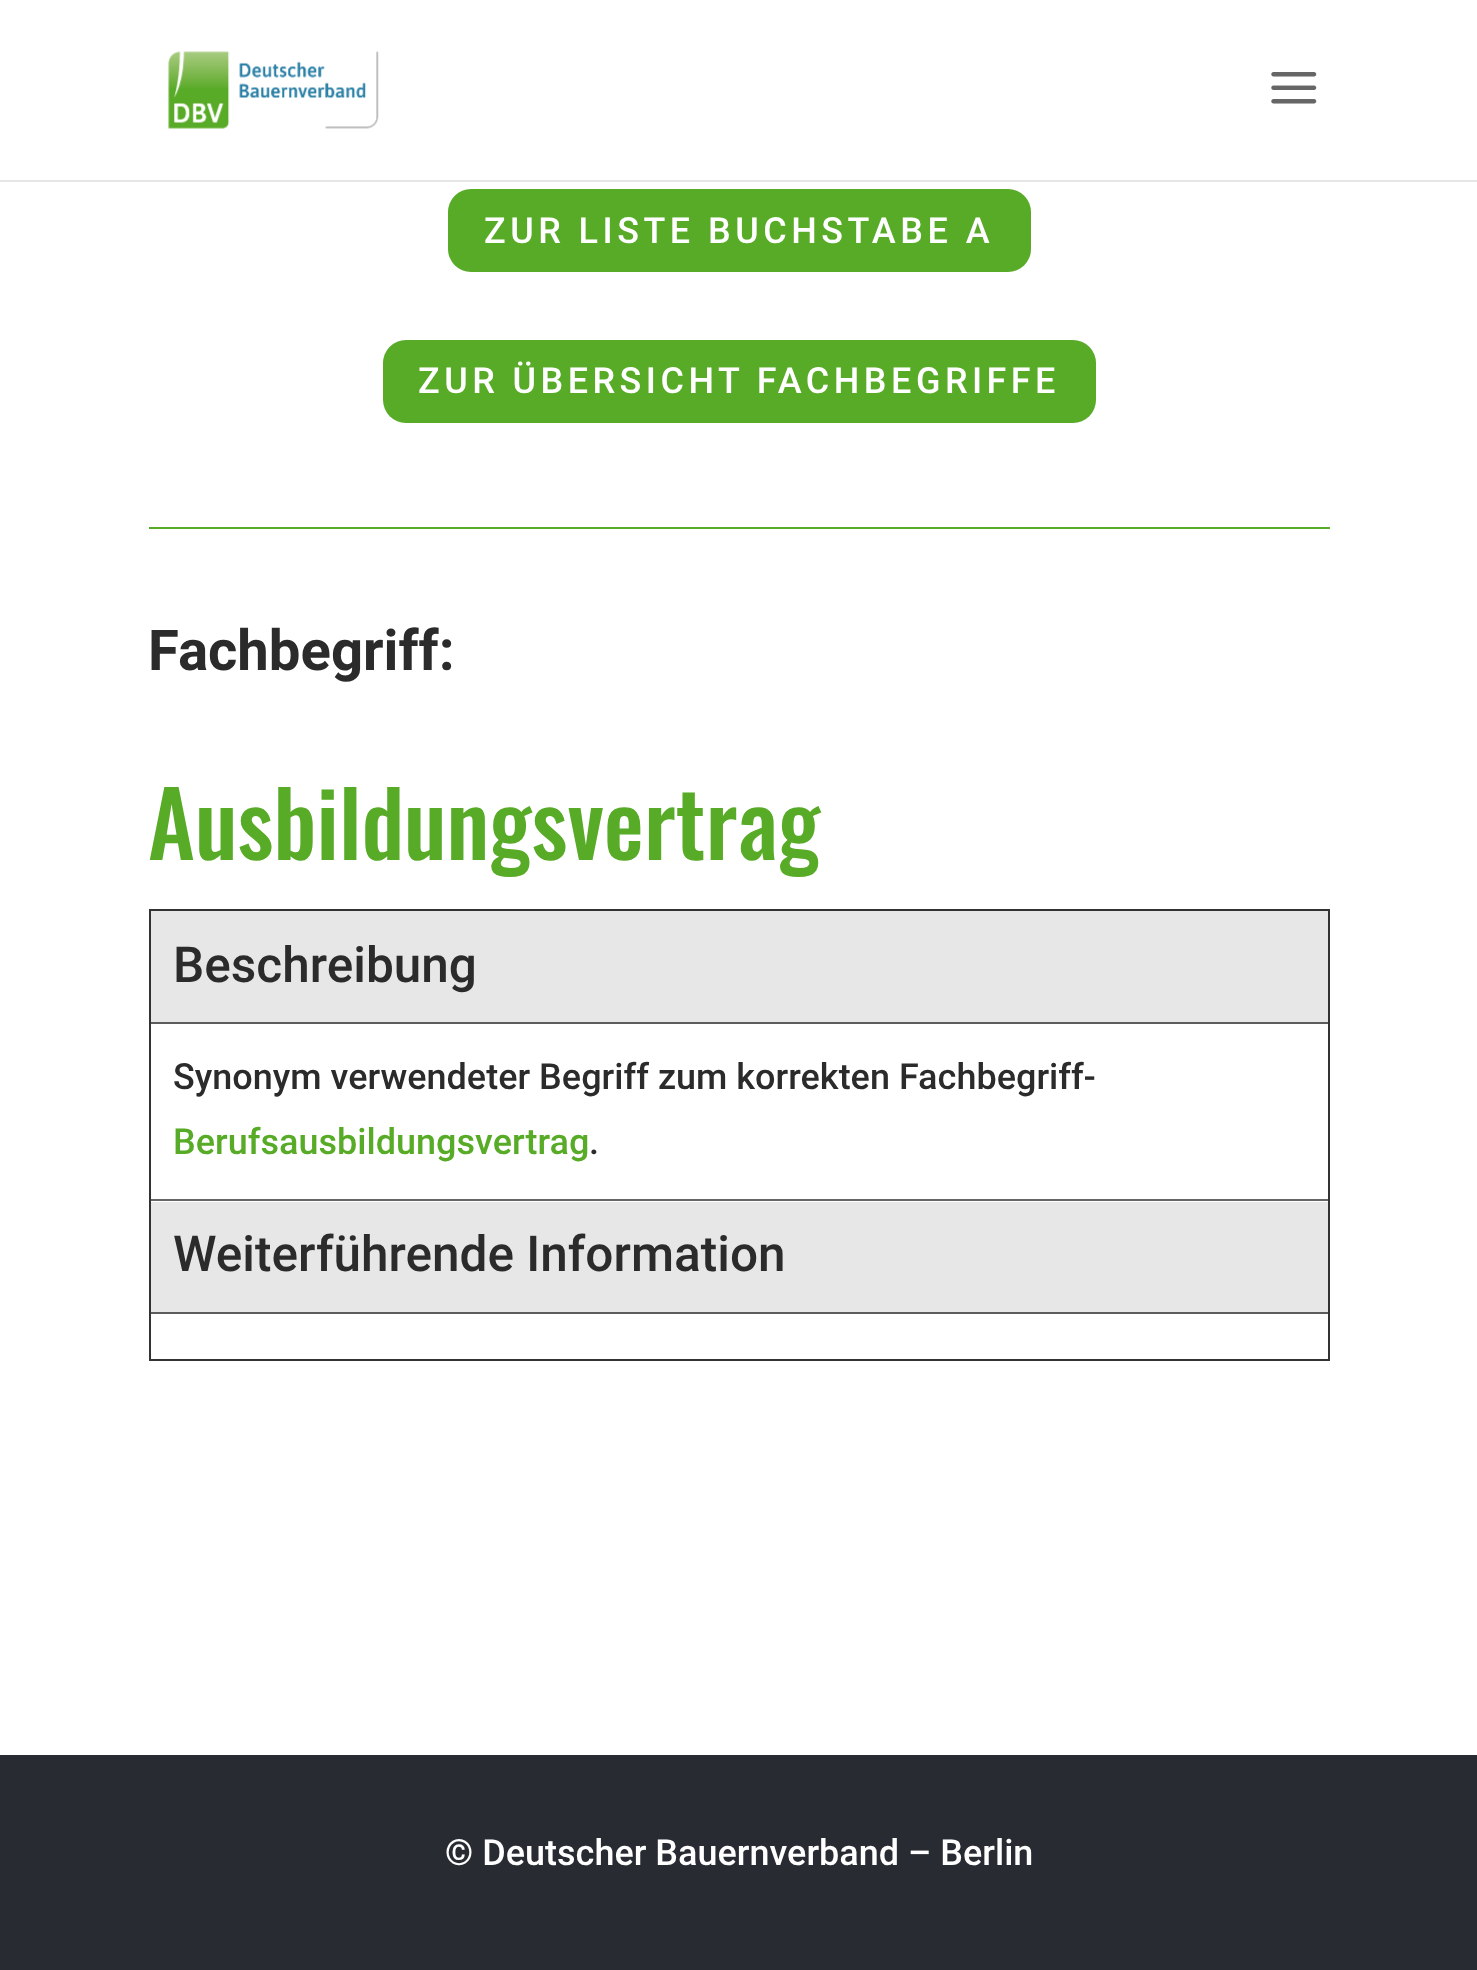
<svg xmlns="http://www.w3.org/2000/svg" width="1477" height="1970">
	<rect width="100%" height="100%" fill="#FFFFFF" />
	<rect x="0" y="180" width="1477" height="2" fill="#E6E6E6" />
	<image x="168" y="51" width="211" height="78" href="assets/img1.png" />
	<image x="1271" y="72" width="46" height="32" href="assets/img2.png" />
	<rect x="448" y="189" width="583" height="83" rx="23" fill="#57AB26" />
	<text x="484" y="243" font-family="Roboto" font-size="36" font-weight="500" letter-spacing="4.5" fill="#FFFFFF">ZUR LISTE BUCHSTABE A</text>
	<rect x="383" y="340" width="713" height="83" rx="23" fill="#57AB26" />
	<text x="418" y="393" font-family="Roboto" font-size="36" font-weight="500" letter-spacing="4.5" fill="#FFFFFF">ZUR ÜBERSICHT FACHBEGRIFFE</text>
	<rect x="149" y="527" width="1181" height="2" fill="#57AB26" />
	<text x="148" y="670" font-family="Roboto" font-size="56.25" font-weight="700" fill="#2B2B2B">Fachbegriff:</text>
	<text x="148" y="860" font-family="Oswald" font-size="90" font-weight="500" fill="#57AB26">Ausbildungsvertrag</text>
	<rect x="150" y="910" width="1179" height="450" fill="none" stroke="#333333" stroke-width="2" />
	<rect x="151" y="911" width="1177" height="111" fill="#E7E7E7" />
	<rect x="151" y="1022" width="1177" height="2" fill="#5C5C5C" />
	<text x="173" y="982" font-family="Roboto" font-size="49.5" font-weight="500" fill="#2B2B2B">Beschreibung</text>
	<rect x="151" y="1199" width="1177" height="2" fill="#666666" />
	<text x="173" y="1089" font-family="Roboto" font-size="36" font-weight="500" fill="#2B2B2B">Synonym verwendeter Begriff zum korrekten Fachbegriff-</text>
	<text x="173" y="1154" font-family="Roboto" font-size="36" font-weight="500" fill="#57AB26">Berufsausbildungsvertrag</text>
	<text x="589" y="1154" font-family="Roboto" font-size="36" font-weight="500" fill="#2B2B2B">.</text>
	<rect x="151" y="1202" width="1177" height="110" fill="#E7E7E7" />
	<rect x="151" y="1312" width="1177" height="2" fill="#5C5C5C" />
	<text x="173" y="1271" font-family="Roboto" font-size="49.5" font-weight="500" fill="#2B2B2B">Weiterführende Information</text>
	<rect x="0" y="1755" width="1477" height="215" fill="#292B33" />
	<text x="445" y="1865" font-family="Roboto" font-size="36" font-weight="500" fill="#FFFFFF">© Deutscher Bauernverband – Berlin</text>
</svg>
